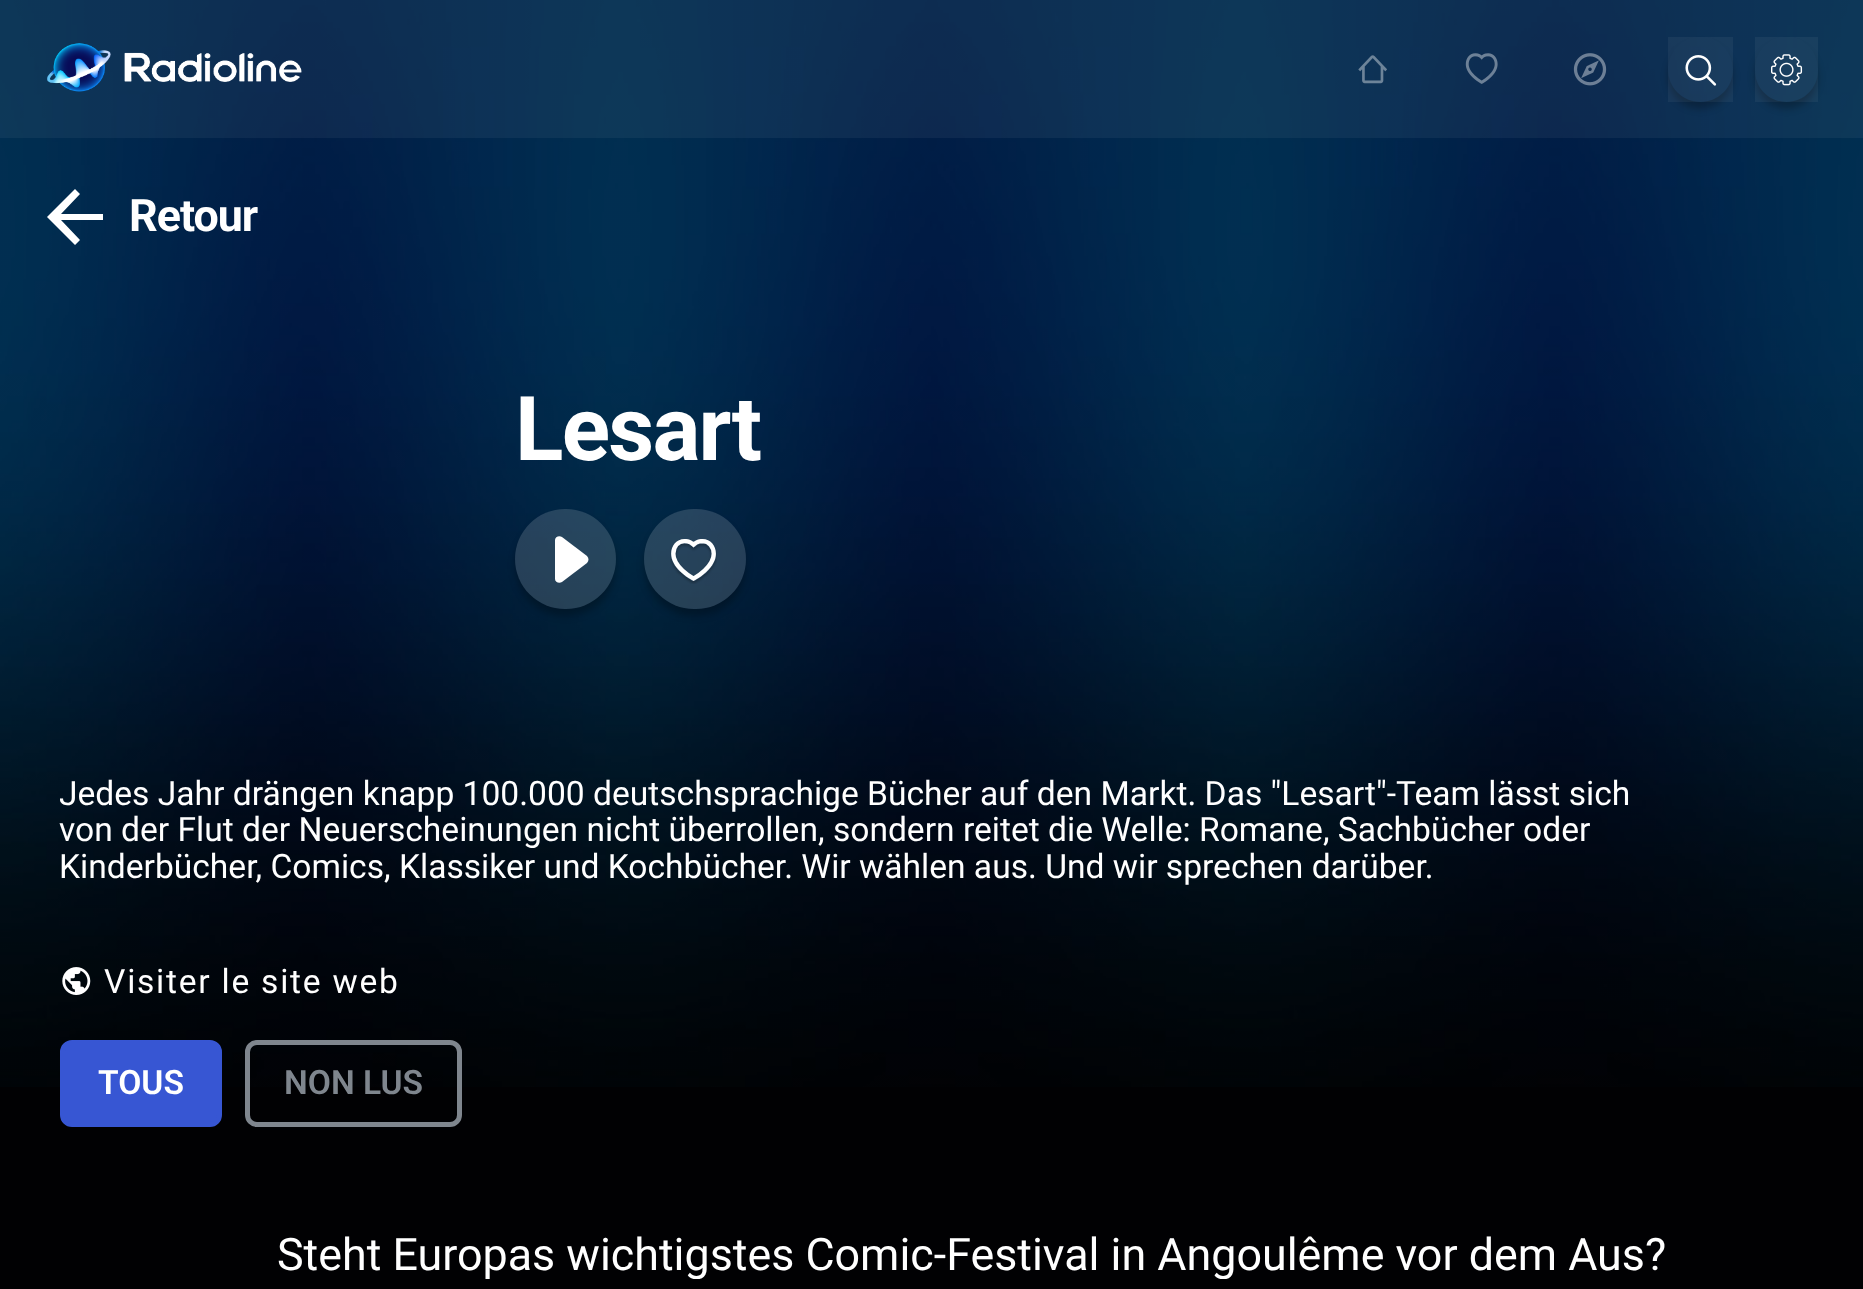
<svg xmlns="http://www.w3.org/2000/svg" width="1863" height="1289">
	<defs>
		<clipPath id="clip1"><path d="M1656 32H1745V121H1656ZM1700.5 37C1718.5 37 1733 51.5 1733 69.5C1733 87.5 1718.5 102 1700.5 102C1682.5 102 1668 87.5 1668 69.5C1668 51.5 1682.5 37 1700.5 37Z" clip-rule="evenodd" /></clipPath>
		<clipPath id="clip2"><path d="M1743 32H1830V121H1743ZM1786.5 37C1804 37 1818 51 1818 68.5V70.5C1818 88 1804 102 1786.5 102C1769 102 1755 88 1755 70.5V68.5C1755 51 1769 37 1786.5 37Z" clip-rule="evenodd" /></clipPath>
		<clipPath id="clip3"><path d="M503 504H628V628H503ZM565 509H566C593.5 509 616 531.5 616 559C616 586.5 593.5 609 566 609H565C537.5 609 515 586.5 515 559C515 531.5 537.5 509 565 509Z" clip-rule="evenodd" /></clipPath>
		<clipPath id="clip4"><path d="M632 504H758V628H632ZM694 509H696C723.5 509 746 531.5 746 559C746 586.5 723.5 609 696 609H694C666.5 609 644 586.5 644 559C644 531.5 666.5 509 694 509Z" clip-rule="evenodd" /></clipPath>
		<clipPath id="clip5"><rect x="60" y="758" width="1744" height="128" /></clipPath>
		<clipPath id="clip6"><rect x="277" y="1223" width="1394" height="56" /></clipPath>
	</defs>
	<rect width="100%" height="100%" fill="#010103" />
	<image x="0" y="0" width="1863" height="1087" href="assets/img1.png" />
	<rect x="0" y="0" width="1863" height="138" fill="#FFFFFF" fill-opacity="0.05" />
	<image x="47" y="43" width="255" height="49" href="assets/img2.png" />
	<image x="1358" y="55" width="29" height="29" href="assets/img3.png" />
	<image x="1465" y="53" width="33" height="31" href="assets/img4.png" />
	<image x="1573" y="53" width="34" height="33" href="assets/img5.png" />
	<g clip-path="url(#clip1)">
		<rect x="1668" y="44" width="65" height="65" rx="32.5" fill="#000000" fill-opacity="0.25" filter="blur(3.5px)" />
	</g>
	<rect x="1668" y="37" width="65" height="65" fill="#FFFFFF" fill-opacity="0.05" />
	<image x="1685" y="55" width="32" height="31" href="assets/img6.png" />
	<g clip-path="url(#clip2)">
		<rect x="1755" y="44" width="63" height="65" rx="31.5" fill="#000000" fill-opacity="0.25" filter="blur(3.5px)" />
	</g>
	<rect x="1755" y="37" width="63" height="65" fill="#FFFFFF" fill-opacity="0.05" />
	<image x="1771" y="54" width="32" height="32" href="assets/img7.png" />
	<path d="M103 214H61L80 194L75 189L47 217L75 245L80 240L61 220H103Z" fill="#FFFFFF" />
	<text x="129" y="231" font-family="Roboto" font-size="44.8" font-weight="700" letter-spacing="-1" fill="#FFFFFF">Retour</text>
	<text x="515" y="460" font-family="Roboto" font-size="89.5" font-weight="700" letter-spacing="-1.75" fill="#FFFFFF">Lesart</text>
	<g clip-path="url(#clip3)">
		<rect x="515" y="516" width="101" height="100" rx="50" fill="#000000" fill-opacity="0.25" filter="blur(3.5px)" />
	</g>
	<rect x="515" y="509" width="101" height="100" rx="50" fill="#FFFFFF" fill-opacity="0.15" />
	<path d="M587 556L562 537C559 535 555 537 555 540V579C555 582 559 584 562 582L587 563C589 561 589 558 587 556Z" fill="#FFFFFF" />
	<g clip-path="url(#clip4)">
		<rect x="644" y="516" width="102" height="100" rx="50" fill="#000000" fill-opacity="0.25" filter="blur(3.5px)" />
	</g>
	<rect x="644" y="509" width="102" height="100" rx="50" fill="#FFFFFF" fill-opacity="0.15" />
	<image x="670" y="539" width="47" height="45" href="assets/img8.png" />
	<g clip-path="url(#clip5)">
		<text x="59" y="805" font-family="Roboto" font-size="33.6" fill="#FFFFFF">Jedes Jahr drängen knapp 100.000 deutschsprachige Bücher auf den Markt. Das "Lesart"-Team lässt sich</text>
	</g>
	<g font-family="Roboto" font-size="33.6" fill="#FFFFFF">
		<text x="59" y="841">von der Flut der Neuerscheinungen nicht überrollen, sondern reitet die Welle: Romane, Sachbücher oder</text>
		<text x="59" y="878">Kinderbücher, Comics, Klassiker und Kochbücher. Wir wählen aus. Und wir sprechen darüber.</text>
	</g>
	<image x="62" y="967" width="29" height="28" href="assets/img9.png" />
	<text x="104" y="993" font-family="Roboto" font-size="33.6" letter-spacing="1.75" fill="#FFFFFF">Visiter le site web</text>
	<rect x="62.5" y="1042.5" width="157" height="82" rx="9.5" fill="#3756D3" stroke="#3756D3" stroke-width="5" />
	<text x="98" y="1094" font-family="Roboto" font-size="33.6" font-weight="600" fill="#FFFFFF">TOUS</text>
	<rect x="247.5" y="1042.5" width="212" height="82" rx="9.5" fill="none" stroke="#7F868E" stroke-width="5" />
	<text x="284" y="1094" font-family="Roboto" font-size="33.6" font-weight="600" fill="#7F868E">NON LUS</text>
	<g clip-path="url(#clip6)">
		<text x="277" y="1270" font-family="Roboto" font-size="44.8" fill="#FFFFFF">Steht Europas wichtigstes Comic-Festival in Angoulême vor dem Aus?</text>
	</g>
</svg>
